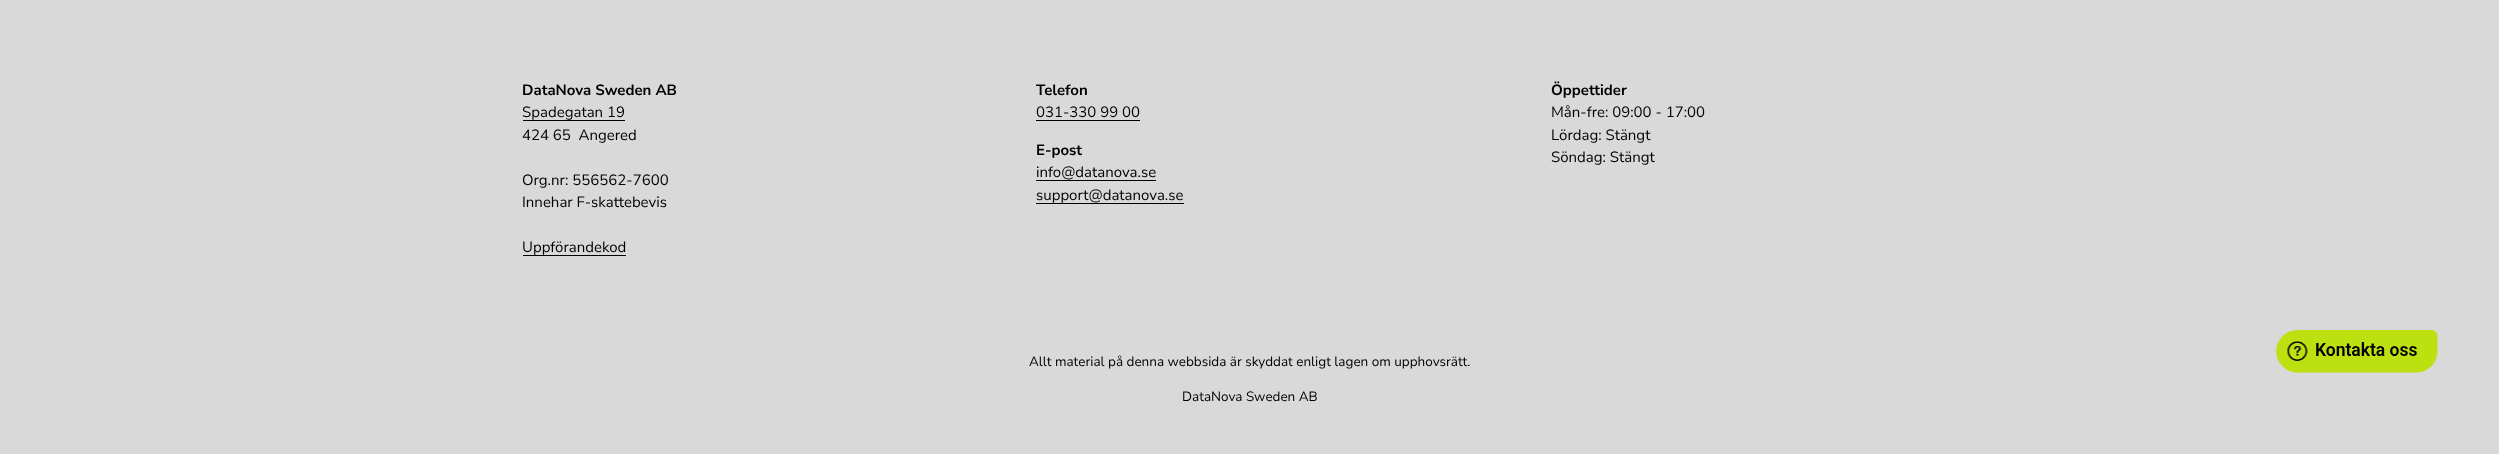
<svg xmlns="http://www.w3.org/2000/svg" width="2499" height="454">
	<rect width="100%" height="100%" fill="#D9D9D9" />
	<text x="522" y="95" font-family="Nunito Sans" font-size="15" font-weight="700" fill="#000000">DataNova Sweden AB</text>
	<text x="522" y="117" font-family="Nunito Sans" font-size="15" fill="#000000">Spadegatan 19</text>
	<rect x="523" y="120" width="102" height="1" fill="#000000" />
	<g font-family="Nunito Sans" font-size="15" fill="#000000">
		<text x="522" y="140" xml:space="preserve">424 65  Angered</text>
		<text x="522" y="185">Org.nr: 556562-7600</text>
		<text x="522" y="207">Innehar F-skattebevis</text>
		<text x="522" y="252">Uppförandekod</text>
	</g>
	<rect x="523" y="255" width="103" height="1" fill="#000000" />
	<text x="1036" y="95" font-family="Nunito Sans" font-size="15" font-weight="700" fill="#000000">Telefon</text>
	<text x="1036" y="117" font-family="Nunito Sans" font-size="15" fill="#000000">031-330 99 00</text>
	<rect x="1036" y="120" width="104" height="1" fill="#000000" />
	<text x="1036" y="155" font-family="Nunito Sans" font-size="15" font-weight="700" fill="#000000">E-post</text>
	<text x="1036" y="177" font-family="Nunito Sans" font-size="15" fill="#000000">info@datanova.se</text>
	<rect x="1036" y="180" width="120" height="1" fill="#000000" />
	<text x="1036" y="200" font-family="Nunito Sans" font-size="15" fill="#000000">support@datanova.se</text>
	<rect x="1036" y="203" width="148" height="1" fill="#000000" />
	<text x="1551" y="95" font-family="Nunito Sans" font-size="15" font-weight="700" fill="#000000">Öppettider</text>
	<g font-family="Nunito Sans" font-size="15" fill="#000000">
		<text x="1551" y="117">Mån-fre: 09:00 - 17:00</text>
		<text x="1551" y="140">Lördag: Stängt</text>
		<text x="1551" y="162">Söndag: Stängt</text>
	</g>
	<g font-family="Nunito Sans" font-size="13.5" fill="#000000">
		<text x="1029" y="366">Allt material på denna webbsida är skyddat enligt lagen om upphovsrätt.</text>
		<text x="1182" y="401">DataNova Sweden AB</text>
	</g>
	<image x="2275" y="330" width="163" height="43" href="assets/img1.png" />
</svg>
